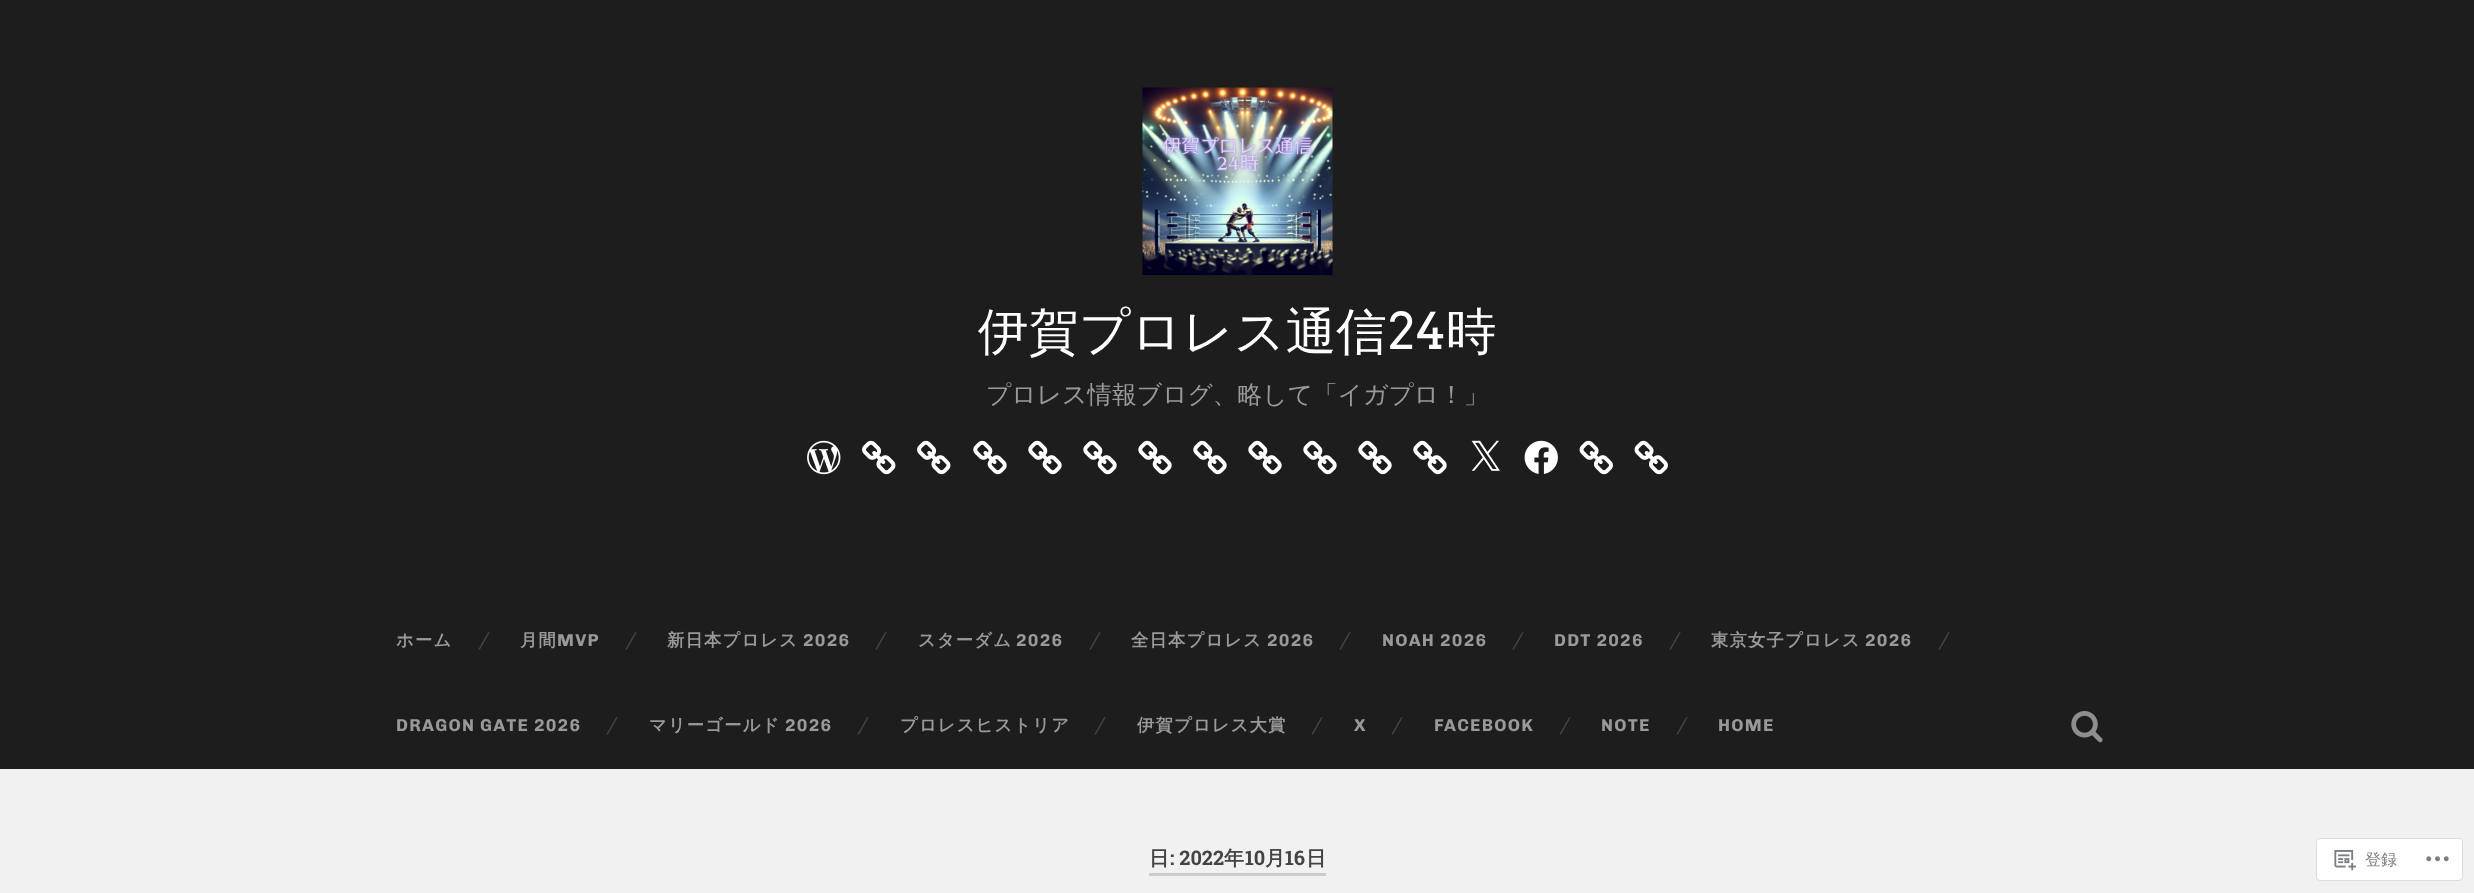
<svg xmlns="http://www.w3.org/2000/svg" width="2474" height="893">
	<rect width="100%" height="100%" fill="#F1F1F1" />
	<rect x="0" y="0" width="2474" height="769" fill="#1D1D1D" />
	<image x="1142" y="87" width="191" height="188" href="assets/img1.png" />
	<text x="978" y="349" font-family="WenQuanYi Zen Hei" font-size="50.5" font-weight="500" fill="#FFFFFF">伊賀プロレス通信</text>
	<text x="1388" y="349" font-family="Arvo" font-size="50.5" fill="#FFFFFF">24</text>
	<text x="1446" y="349" font-family="WenQuanYi Zen Hei" font-size="50.5" font-weight="500" fill="#FFFFFF">時</text>
	<text x="986" y="403" font-family="WenQuanYi Zen Hei" font-size="24.75" font-weight="500" fill="#999999">プロレス情報ブログ、略して「イガプロ！」</text>
	<image x="807" y="440" width="34" height="35" href="assets/img2.png" />
	<image x="862" y="440" width="34" height="35" href="assets/img3.png" />
	<image x="917" y="440" width="34" height="35" href="assets/img3.png" />
	<image x="973" y="440" width="34" height="35" href="assets/img4.png" />
	<image x="1028" y="440" width="34" height="35" href="assets/img4.png" />
	<image x="1083" y="440" width="34" height="35" href="assets/img4.png" />
	<image x="1138" y="440" width="34" height="35" href="assets/img4.png" />
	<image x="1193" y="440" width="34" height="35" href="assets/img4.png" />
	<image x="1248" y="440" width="34" height="35" href="assets/img4.png" />
	<image x="1303" y="440" width="34" height="35" href="assets/img4.png" />
	<image x="1358" y="440" width="34" height="35" href="assets/img4.png" />
	<image x="1413" y="440" width="34" height="35" href="assets/img4.png" />
	<image x="1471" y="440" width="29" height="31" href="assets/img5.png" />
	<image x="1524" y="440" width="34" height="34" href="assets/img6.png" />
	<image x="1579" y="440" width="34" height="35" href="assets/img7.png" />
	<image x="1634" y="440" width="34" height="35" href="assets/img7.png" />
	<text x="396" y="646" font-family="WenQuanYi Zen Hei" font-size="17.25" font-weight="700" letter-spacing="1.25" fill="#999999">ホーム</text>
	<text x="478" y="646" font-family="Chivo" font-size="20" fill="#444444">/</text>
	<text x="520" y="646" font-family="WenQuanYi Zen Hei" font-size="17.25" font-weight="700" letter-spacing="1.25" fill="#999999">月間</text>
	<text x="557" y="646" font-family="Chivo" font-size="17.25" font-weight="700" letter-spacing="1.25" fill="#999999">MVP</text>
	<text x="625" y="646" font-family="Chivo" font-size="20" fill="#444444">/</text>
	<text x="667" y="646" font-family="WenQuanYi Zen Hei" font-size="17.25" font-weight="700" letter-spacing="1.25" fill="#999999">新日本プロレス</text>
	<text x="803" y="646" font-family="Chivo" font-size="17.25" font-weight="700" letter-spacing="1.25" fill="#999999">2026</text>
	<text x="875" y="646" font-family="Chivo" font-size="20" fill="#444444">/</text>
	<text x="918" y="646" font-family="WenQuanYi Zen Hei" font-size="17.25" font-weight="700" letter-spacing="1.25" fill="#999999">スターダム</text>
	<text x="1016" y="646" font-family="Chivo" font-size="17.25" font-weight="700" letter-spacing="1.25" fill="#999999">2026</text>
	<text x="1089" y="646" font-family="Chivo" font-size="20" fill="#444444">/</text>
	<text x="1131" y="646" font-family="WenQuanYi Zen Hei" font-size="17.25" font-weight="700" letter-spacing="1.25" fill="#999999">全日本プロレス</text>
	<text x="1267" y="646" font-family="Chivo" font-size="17.25" font-weight="700" letter-spacing="1.25" fill="#999999">2026</text>
	<text x="1339" y="646" font-family="Chivo" font-size="20" fill="#444444">/</text>
	<text x="1382" y="646" font-family="Chivo" font-size="17.25" font-weight="700" letter-spacing="1.25" fill="#999999">NOAH 2026</text>
	<text x="1512" y="646" font-family="Chivo" font-size="20" fill="#444444">/</text>
	<text x="1554" y="646" font-family="Chivo" font-size="17.25" font-weight="700" letter-spacing="1.25" fill="#999999">DDT 2026</text>
	<text x="1669" y="646" font-family="Chivo" font-size="20" fill="#444444">/</text>
	<text x="1711" y="646" font-family="WenQuanYi Zen Hei" font-size="17.25" font-weight="700" letter-spacing="1.25" fill="#999999">東京女子プロレス</text>
	<text x="1865" y="646" font-family="Chivo" font-size="17.25" font-weight="700" letter-spacing="1.25" fill="#999999">2026</text>
	<text x="1938" y="646" font-family="Chivo" font-size="20" fill="#444444">/</text>
	<text x="396" y="731" font-family="Chivo" font-size="17.25" font-weight="700" letter-spacing="1.25" fill="#999999">DRAGON GATE 2026</text>
	<text x="606" y="731" font-family="Chivo" font-size="20" fill="#444444">/</text>
	<text x="649" y="731" font-family="WenQuanYi Zen Hei" font-size="17.25" font-weight="700" letter-spacing="1.25" fill="#999999">マリーゴールド</text>
	<text x="785" y="731" font-family="Chivo" font-size="17.25" font-weight="700" letter-spacing="1.25" fill="#999999">2026</text>
	<text x="857" y="731" font-family="Chivo" font-size="20" fill="#444444">/</text>
	<text x="900" y="731" font-family="WenQuanYi Zen Hei" font-size="17.25" font-weight="700" letter-spacing="1.25" fill="#999999">プロレスヒストリア</text>
	<text x="1094" y="731" font-family="Chivo" font-size="20" fill="#444444">/</text>
	<text x="1137" y="731" font-family="WenQuanYi Zen Hei" font-size="17.25" font-weight="700" letter-spacing="1.25" fill="#999999">伊賀プロレス大賞</text>
	<text x="1311" y="731" font-family="Chivo" font-size="20" fill="#444444">/</text>
	<text x="1354" y="731" font-family="Chivo" font-size="17.25" font-weight="700" letter-spacing="1.25" fill="#999999">X</text>
	<text x="1391" y="731" font-family="Chivo" font-size="20" fill="#444444">/</text>
	<text x="1434" y="731" font-family="Chivo" font-size="17.25" font-weight="700" letter-spacing="1.25" fill="#999999">FACEBOOK</text>
	<text x="1559" y="731" font-family="Chivo" font-size="20" fill="#444444">/</text>
	<text x="1601" y="731" font-family="Chivo" font-size="17.25" font-weight="700" letter-spacing="1.25" fill="#999999">NOTE</text>
	<text x="1676" y="731" font-family="Chivo" font-size="20" fill="#444444">/</text>
	<text x="1718" y="731" font-family="Chivo" font-size="17.25" font-weight="700" letter-spacing="1.25" fill="#999999">HOME</text>
	<image x="2071" y="711" width="32" height="32" href="assets/img8.png" />
	<rect x="1149" y="873" width="177" height="3" fill="#CCCCCC" />
	<text x="1149" y="865" font-family="WenQuanYi Zen Hei" font-size="20" font-weight="700" fill="#444444">日</text>
	<text x="1170" y="865" font-family="Roboto Slab" font-size="20" font-weight="700" fill="#444444">: 2022</text>
	<text x="1224" y="865" font-family="WenQuanYi Zen Hei" font-size="20" font-weight="700" fill="#444444">年</text>
	<text x="1245" y="865" font-family="Roboto Slab" font-size="20" font-weight="700" fill="#444444">10</text>
	<text x="1265" y="865" font-family="WenQuanYi Zen Hei" font-size="20" font-weight="700" fill="#444444">月</text>
	<text x="1285" y="865" font-family="Roboto Slab" font-size="20" font-weight="700" fill="#444444">16</text>
	<text x="1306" y="865" font-family="WenQuanYi Zen Hei" font-size="20" font-weight="700" fill="#444444">日</text>
	<rect x="2316.5" y="838.5" width="146" height="42" rx="3.5" fill="#FFFFFF" stroke="#DCDCDE" />
	<image x="2334" y="850" width="22" height="21" href="assets/img9.png" />
	<text x="2365" y="865" font-family="WenQuanYi Zen Hei" font-size="16" font-weight="500" fill="#7A7E84">登録</text>
	<image x="2426" y="856" width="23" height="6" href="assets/img10.png" />
</svg>
